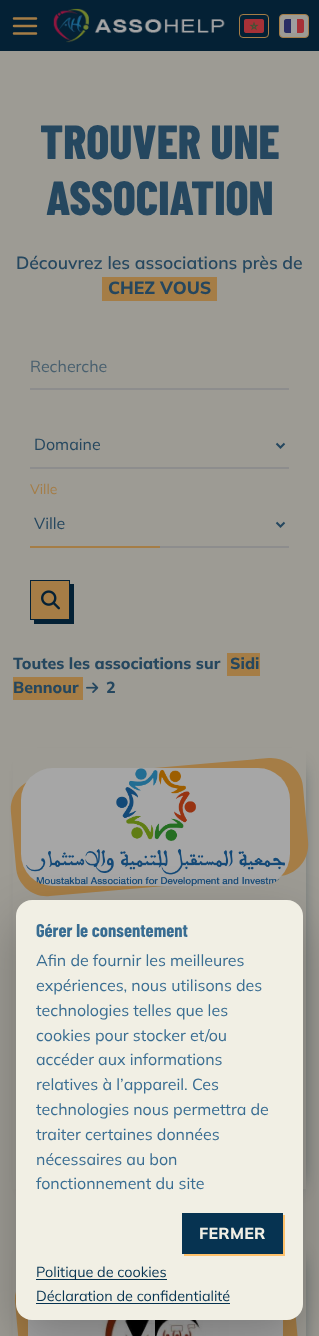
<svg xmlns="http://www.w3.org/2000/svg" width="319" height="1336">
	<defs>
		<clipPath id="clip1"><path d="M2 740H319V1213H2ZM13 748H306V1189H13Z" clip-rule="evenodd" /></clipPath>
		<clipPath id="clip2"><path d="M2 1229H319V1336H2ZM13 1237H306V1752H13Z" clip-rule="evenodd" /></clipPath>
	</defs>
	<rect width="100%" height="100%" fill="#9D9B94" />
	<rect x="0" y="0" width="319" height="51" fill="#042135" />
	<path d="M14 26H36M14 18.5H36M14 33.5H36" fill="none" stroke="#A57D46" stroke-width="2.5" stroke-linecap="round" stroke-linejoin="round" />
	<image x="53" y="8" width="172" height="35" href="assets/img1.png" />
	<rect x="239.5" y="14.5" width="29" height="23" rx="3.5" fill="none" stroke="#A57D46" />
	<image x="244" y="19" width="20" height="14" href="assets/img2.png" />
	<rect x="279.5" y="14.5" width="29" height="23" rx="3.5" fill="#9D9B94" stroke="#A57D46" />
	<path d="M286 19H291V33H286C285 33 284 32 284 31V21C284 20 285 19 286 19Z" fill="#2A2E65" />
	<rect x="291" y="19" width="6" height="14" fill="#9F9F9F" />
	<path d="M297 19H302C303 19 304 20 304 21V31C304 32 303 33 302 33H297Z" fill="#A63137" />
	<g font-family="Barlow Condensed" font-size="48" font-weight="800" fill="#25475F">
		<text x="40" y="159">TROUVER UNE</text>
		<text x="46" y="215">ASSOCIATION</text>
	</g>
	<text x="16" y="269" font-family="Mulish" font-size="17.6" font-weight="600" fill="#25475F">Découvrez les associations près de</text>
	<rect x="102" y="277" width="115" height="24" fill="#A57D46" />
	<text x="108" y="294" font-family="Mulish" font-size="17.6" font-weight="800" fill="#25475F">CHEZ VOUS</text>
	<rect x="30" y="388" width="259" height="2" fill="#8D8D8D" />
	<text x="30" y="372" font-family="Mulish" font-size="16" fill="#49606F">Recherche</text>
	<rect x="30" y="467" width="259" height="2" fill="#8D8D8D" />
	<path d="M276.5 443.5L280.5 447.5L284.5 443.5" fill="none" stroke="#25475F" stroke-width="2" />
	<text x="34" y="450" font-family="Mulish" font-size="16" fill="#25475F">Domaine</text>
	<text x="30" y="494" font-family="Mulish" font-size="14" fill="#A57D46">Ville</text>
	<rect x="160" y="546" width="129" height="2" fill="#8D8D8D" />
	<path d="M276.5 522.5L280.5 526.5L284.5 522.5" fill="none" stroke="#25475F" stroke-width="2" />
	<text x="34" y="529" font-family="Mulish" font-size="16" fill="#25475F">Ville</text>
	<rect x="30" y="546" width="130" height="2" fill="#A57D46" />
	<path d="M34 620V624H74V584H70V620Z" fill="#042135" />
	<rect x="30.5" y="580.5" width="39" height="39" fill="#A57D46" stroke="#042135" />
	<image x="41" y="590" width="19" height="20" href="assets/img3.png" />
	<text x="13" y="669" font-family="Mulish" font-size="16" font-weight="800" fill="#25475F">Toutes les associations sur</text>
	<rect x="227" y="653" width="33" height="23" fill="#A57D46" />
	<text x="230" y="669" font-family="Mulish" font-size="16" font-weight="800" fill="#25475F">Sidi</text>
	<rect x="13" y="677" width="70" height="23" fill="#A57D46" />
	<text x="13" y="693" font-family="Mulish" font-size="16" font-weight="800" fill="#25475F">Bennour</text>
	<image x="86" y="682" width="13" height="11" href="assets/img4.png" />
	<text x="106" y="693" font-family="Mulish" font-size="16" font-weight="800" fill="#25475F">2</text>
	<g clip-path="url(#clip1)">
		<rect x="33" y="771" width="263" height="411" fill="#042135" filter="blur(10px)" />
	</g>
	<path d="M40 778L269 758C286 757 302 770 303 787L308 841C310 859 297 875 279 876L50 896C33 898 17 885 16 867L11 813C9 795 22 780 40 778Z" fill="#A57D46" />
	<rect x="21" y="768" width="269" height="118" rx="32" fill="#A6A6A6" />
	<image x="26" y="768" width="259" height="118" href="assets/img5.png" />
	<g clip-path="url(#clip2)">
		<rect x="33" y="1260" width="263" height="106" fill="#042135" filter="blur(10px)" />
	</g>
	<path d="M44 1267L258 1248C275 1247 291 1260 292 1277L304 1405C305 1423 292 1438 275 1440L61 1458C44 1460 28 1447 27 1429L15 1302C14 1284 27 1269 44 1267Z" fill="#A57D46" />
	<rect x="28" y="1319" width="255" height="17" fill="#A6A6A6" />
	<image x="28" y="1319" width="232" height="17" href="assets/img6.png" />
	<rect x="16" y="920" width="287" height="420" rx="16" fill="#000000" fill-opacity="0.25" filter="blur(25px)" />
	<rect x="16" y="900" width="287" height="420" rx="16" fill="#F1EFE4" />
	<text x="36" y="937" font-family="Barlow Condensed" font-size="18.5" font-weight="700" fill="#396D92">Gérer le consentement</text>
	<g font-family="Mulish" font-size="16" fill="#396D92">
		<text x="36" y="966">Afin de fournir les meilleures</text>
		<text x="36" y="991">expériences, nous utilisons des</text>
		<text x="36" y="1016">technologies telles que les</text>
		<text x="36" y="1041">cookies pour stocker et/ou</text>
		<text x="36" y="1065">accéder aux informations</text>
		<text x="36" y="1090">relatives à l’appareil. Ces</text>
		<text x="36" y="1115">technologies nous permettra de</text>
		<text x="36" y="1140">traiter certaines données</text>
		<text x="36" y="1165">nécessaires au bon</text>
		<text x="36" y="1189">fonctionnement du site</text>
	</g>
	<path d="M184 1254V1256H285V1215H283V1254Z" fill="#FEC16B" />
	<rect x="182" y="1213" width="101" height="41" fill="#063351" />
	<text x="199" y="1239" font-family="Mulish" font-size="16" font-weight="800" letter-spacing="0.25" fill="#F1EFE4">FERMER</text>
	<rect x="36" y="1279" width="131" height="1" fill="#063351" />
	<g font-family="Mulish" font-size="14.4" fill="#063351">
		<text x="36" y="1277">Politique de cookies</text>
		<text x="36" y="1301">Déclaration de confidentialité</text>
	</g>
	<rect x="36" y="1303" width="194" height="1" fill="#063351" />
</svg>
